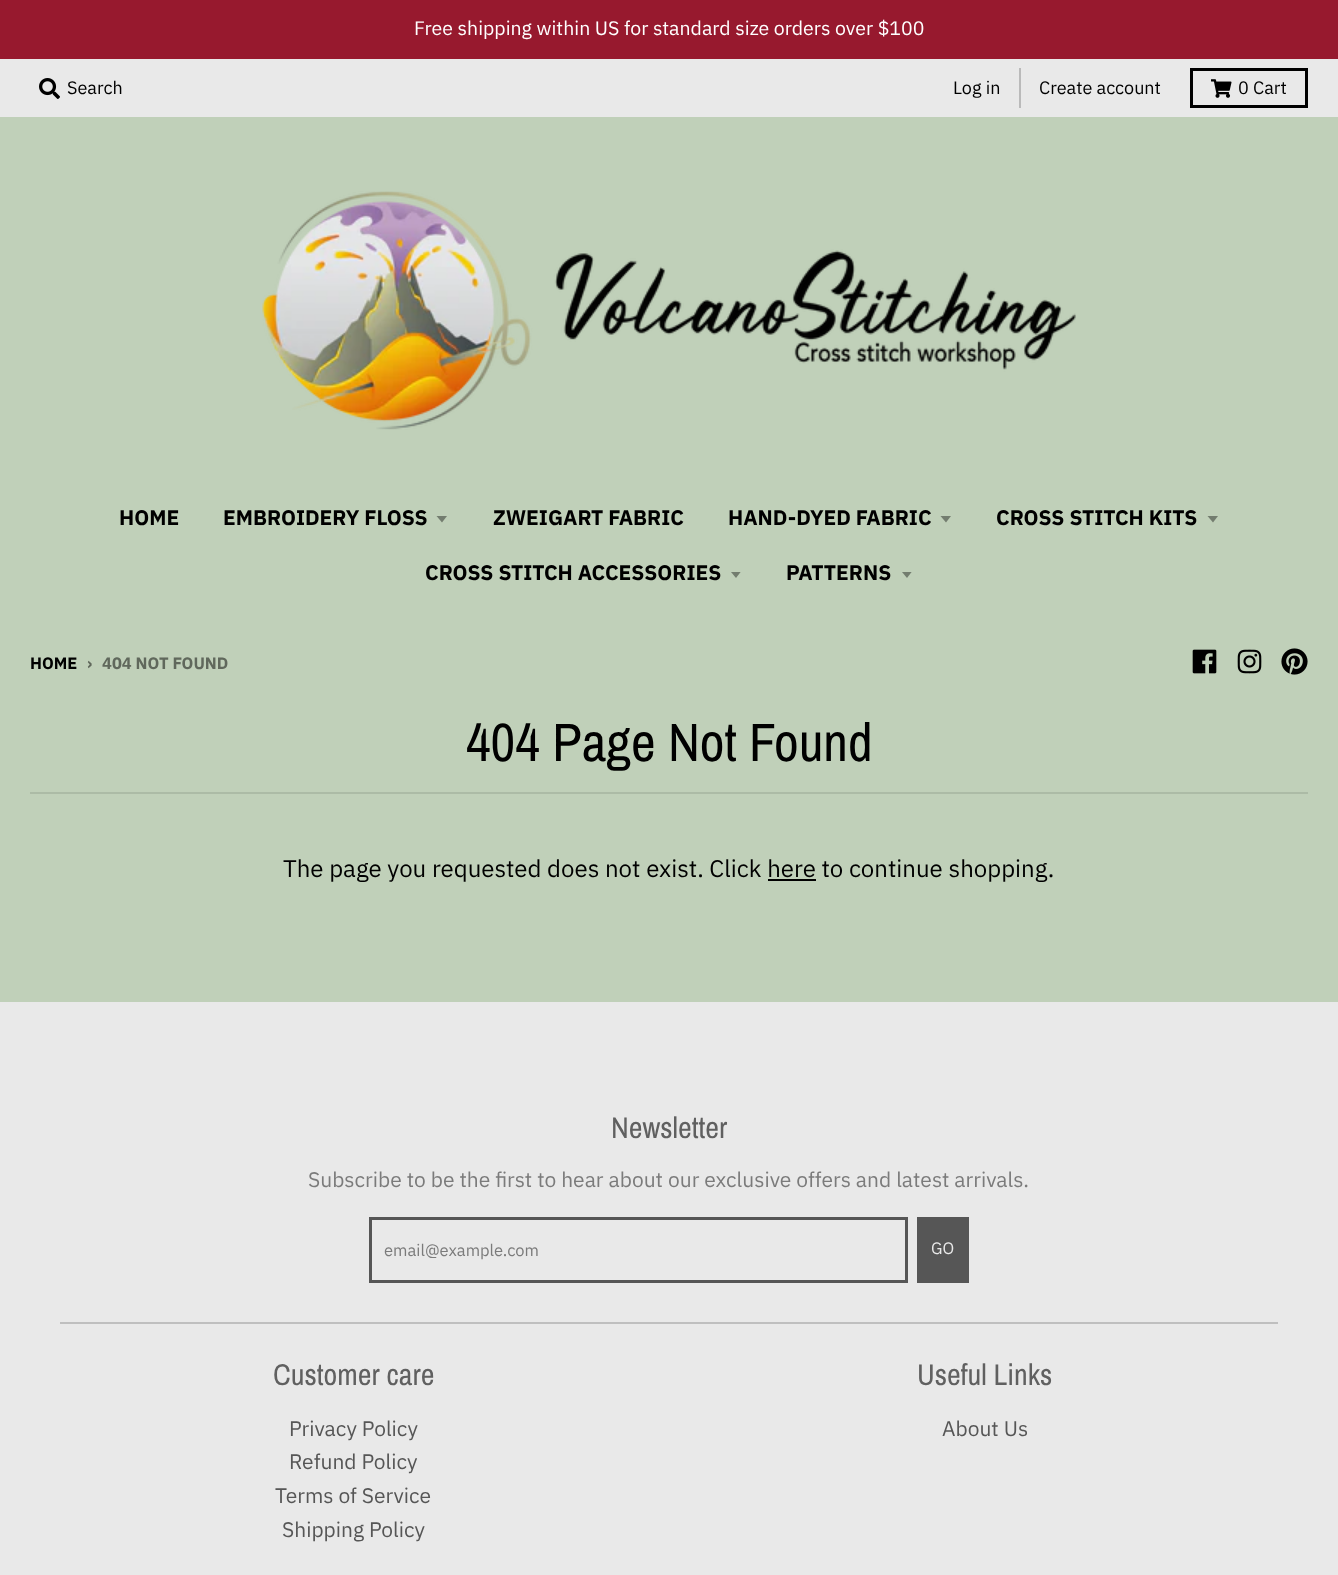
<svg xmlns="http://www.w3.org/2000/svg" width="1338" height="1575">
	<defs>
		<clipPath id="clip1"><rect x="731" y="572" width="12" height="7" /></clipPath>
		<clipPath id="clip2"><rect x="902" y="572" width="12" height="7" /></clipPath>
	</defs>
	<rect width="100%" height="100%" fill="#C0D0B9" />
	<rect x="0" y="0" width="1338" height="59" fill="#97192E" />
	<text x="414" y="35" font-family="IBM Plex Sans" font-size="19.5" fill="#FFFFFF">Free shipping within US for standard size orders over $100</text>
	<rect x="0" y="59" width="1338" height="58" fill="#E9E9E9" />
	<image x="39" y="78" width="21" height="21" href="assets/img1.png" />
	<text x="67" y="94" font-family="IBM Plex Sans" font-size="18" fill="#000000">Search</text>
	<rect x="1019" y="68" width="2" height="40" fill="#BABABA" />
	<g font-family="IBM Plex Sans" font-size="18" fill="#000000">
		<text x="953" y="94">Log in</text>
		<text x="1039" y="94">Create account</text>
	</g>
	<rect x="1191.5" y="69.5" width="115" height="37" fill="none" stroke="#000000" stroke-width="3" />
	<image x="1211" y="79" width="21" height="19" href="assets/img2.png" />
	<text x="1238" y="94" font-family="IBM Plex Sans" font-size="18" fill="#000000">0 Cart</text>
	<image x="262" y="191" width="814" height="239" href="assets/img3.png" />
	<g font-family="IBM Plex Sans" font-size="21" font-weight="700" fill="#000000">
		<text x="119" y="525">HOME</text>
		<text x="223" y="525">EMBROIDERY FLOSS</text>
	</g>
	<path d="M436.5 516L442 522.5L447 516Z" fill="#737D6F" />
	<g font-family="IBM Plex Sans" font-size="21" font-weight="700" fill="#000000">
		<text x="493" y="525">ZWEIGART FABRIC</text>
		<text x="728" y="525">HAND-DYED FABRIC</text>
	</g>
	<path d="M940.5 516L946 522.5L951 516Z" fill="#737D6F" />
	<text x="996" y="525" font-family="IBM Plex Sans" font-size="21" font-weight="700" fill="#000000">CROSS STITCH KITS</text>
	<path d="M1207.5 516L1213 522.5L1218 516Z" fill="#737D6F" />
	<text x="425" y="580" font-family="IBM Plex Sans" font-size="21" font-weight="700" fill="#000000">CROSS STITCH ACCESSORIES</text>
	<g clip-path="url(#clip1)">
		<path d="M730.5 571.5L736 578L741 571.5Z" fill="#737D6F" />
	</g>
	<text x="786" y="580" font-family="IBM Plex Sans" font-size="21" font-weight="700" fill="#000000">PATTERNS</text>
	<g clip-path="url(#clip2)">
		<path d="M901.5 571.5L907 578L912 571.5Z" fill="#737D6F" />
	</g>
	<text x="30" y="669" font-family="IBM Plex Sans" font-size="16.5" font-weight="700" fill="#000000">HOME</text>
	<g font-family="IBM Plex Sans" font-size="16.5" font-weight="700" fill="#60685C">
		<text x="87" y="669">›</text>
		<text x="102" y="669">404 NOT FOUND</text>
	</g>
	<image x="1192" y="649" width="25" height="25" href="assets/img4.png" />
	<image x="1237" y="649" width="25" height="25" href="assets/img5.png" />
	<image x="1281" y="648" width="27" height="27" href="assets/img6.png" />
	<rect x="30" y="792" width="1278" height="2" fill="#ACBBA6" />
	<text x="466" y="761" font-family="Archivo Narrow" font-size="54" fill="#000000">404 Page Not Found</text>
	<text x="283" y="877" font-family="IBM Plex Sans" font-size="24" fill="#000000">The page you requested does not exist. Click here to continue shopping.</text>
	<rect x="768" y="879" width="48" height="2" fill="#000000" />
	<rect x="0" y="1002" width="1338" height="573" fill="#E9E9E9" />
	<text x="611" y="1138" font-family="Archivo Narrow" font-size="30" fill="#606060">Newsletter</text>
	<text x="308" y="1187" font-family="IBM Plex Sans" font-size="21" fill="#7B7B7B">Subscribe to be the first to hear about our exclusive offers and latest arrivals.</text>
	<rect x="60" y="1322" width="1218" height="2" fill="#BFBFBF" />
	<rect x="370.5" y="1218.5" width="536" height="63" fill="none" stroke="#565656" stroke-width="3" />
	<text x="384" y="1256" font-family="IBM Plex Sans" font-size="16.5" fill="#7B7B7B">email@example.com</text>
	<rect x="917" y="1217" width="52" height="66" fill="#565656" />
	<text x="931" y="1254" font-family="IBM Plex Sans" font-size="16.5" fill="#E9E9E9">GO</text>
	<text x="273" y="1385" font-family="Archivo Narrow" font-size="30" fill="#606060">Customer care</text>
	<g font-family="IBM Plex Sans" font-size="21" fill="#565656">
		<text x="289" y="1436">Privacy Policy</text>
		<text x="289" y="1469">Refund Policy</text>
		<text x="275" y="1503">Terms of Service</text>
		<text x="282" y="1537">Shipping Policy</text>
	</g>
	<text x="917" y="1385" font-family="Archivo Narrow" font-size="30" fill="#606060">Useful Links</text>
	<text x="942" y="1436" font-family="IBM Plex Sans" font-size="21" fill="#565656">About Us</text>
</svg>
